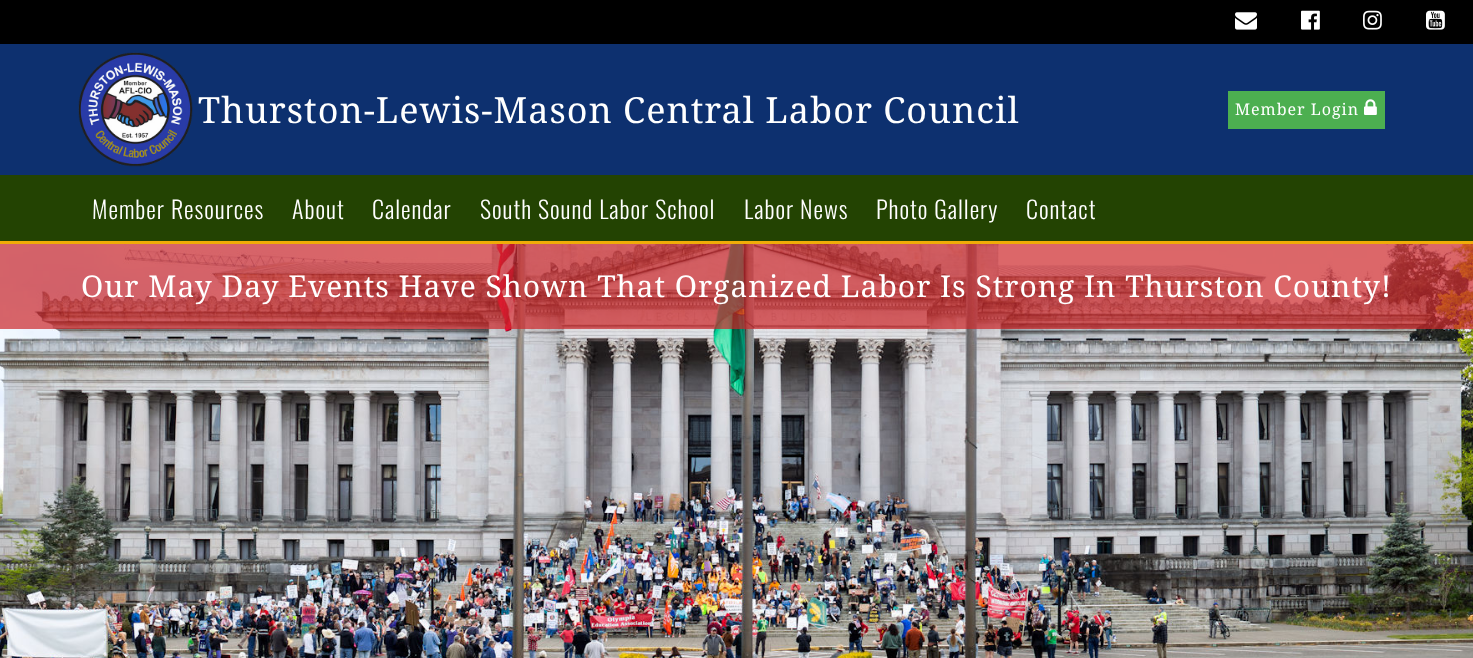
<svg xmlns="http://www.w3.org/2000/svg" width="1473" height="658">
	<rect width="100%" height="100%" fill="#0D306F" />
	<rect x="0" y="0" width="1473" height="44" fill="#000000" />
	<image x="1235" y="12" width="22" height="18" href="assets/img1.png" />
	<image x="1301" y="10" width="19" height="20" href="assets/img2.png" />
	<image x="1363" y="10" width="19" height="20" href="assets/img3.png" />
	<image x="1426" y="10" width="19" height="20" href="assets/img4.png" />
	<image x="78" y="52" width="115" height="115" href="assets/img5.png" />
	<text x="198" y="123" font-family="Droid Serif" font-size="36" letter-spacing="1" fill="#FFFFFF">Thurston-Lewis-Mason Central Labor Council</text>
	<rect x="1228" y="91" width="157" height="38" fill="#4CAF50" />
	<text x="1235" y="115" font-family="Droid Serif" font-size="16" letter-spacing="1" fill="#FFFFFF">Member Login</text>
	<image x="1364" y="99" width="13" height="16" href="assets/img6.png" />
	<rect x="0" y="175" width="1473" height="66" fill="#234302" />
	<rect x="0" y="241" width="1473" height="3" fill="#F0AC08" />
	<g font-family="Oswald" font-size="24" font-weight="300" letter-spacing="1" fill="#FFFFFF">
		<text x="92" y="219">Member Resources</text>
		<text x="292" y="219">About</text>
		<text x="372" y="219">Calendar</text>
		<text x="480" y="219">South Sound Labor School</text>
		<text x="744" y="219">Labor News</text>
		<text x="876" y="219">Photo Gallery</text>
		<text x="1026" y="219">Contact</text>
	</g>
	<image x="0" y="244" width="1473" height="414" href="assets/img7.png" />
	<rect x="0" y="244" width="1473" height="85" fill="#CD262A" fill-opacity="0.7" />
	<text x="81" y="297" font-family="Droid Serif" font-size="30" letter-spacing="1" fill="#FFFFFF">Our May Day Events Have Shown That Organized Labor Is Strong In Thurston County!</text>
</svg>
